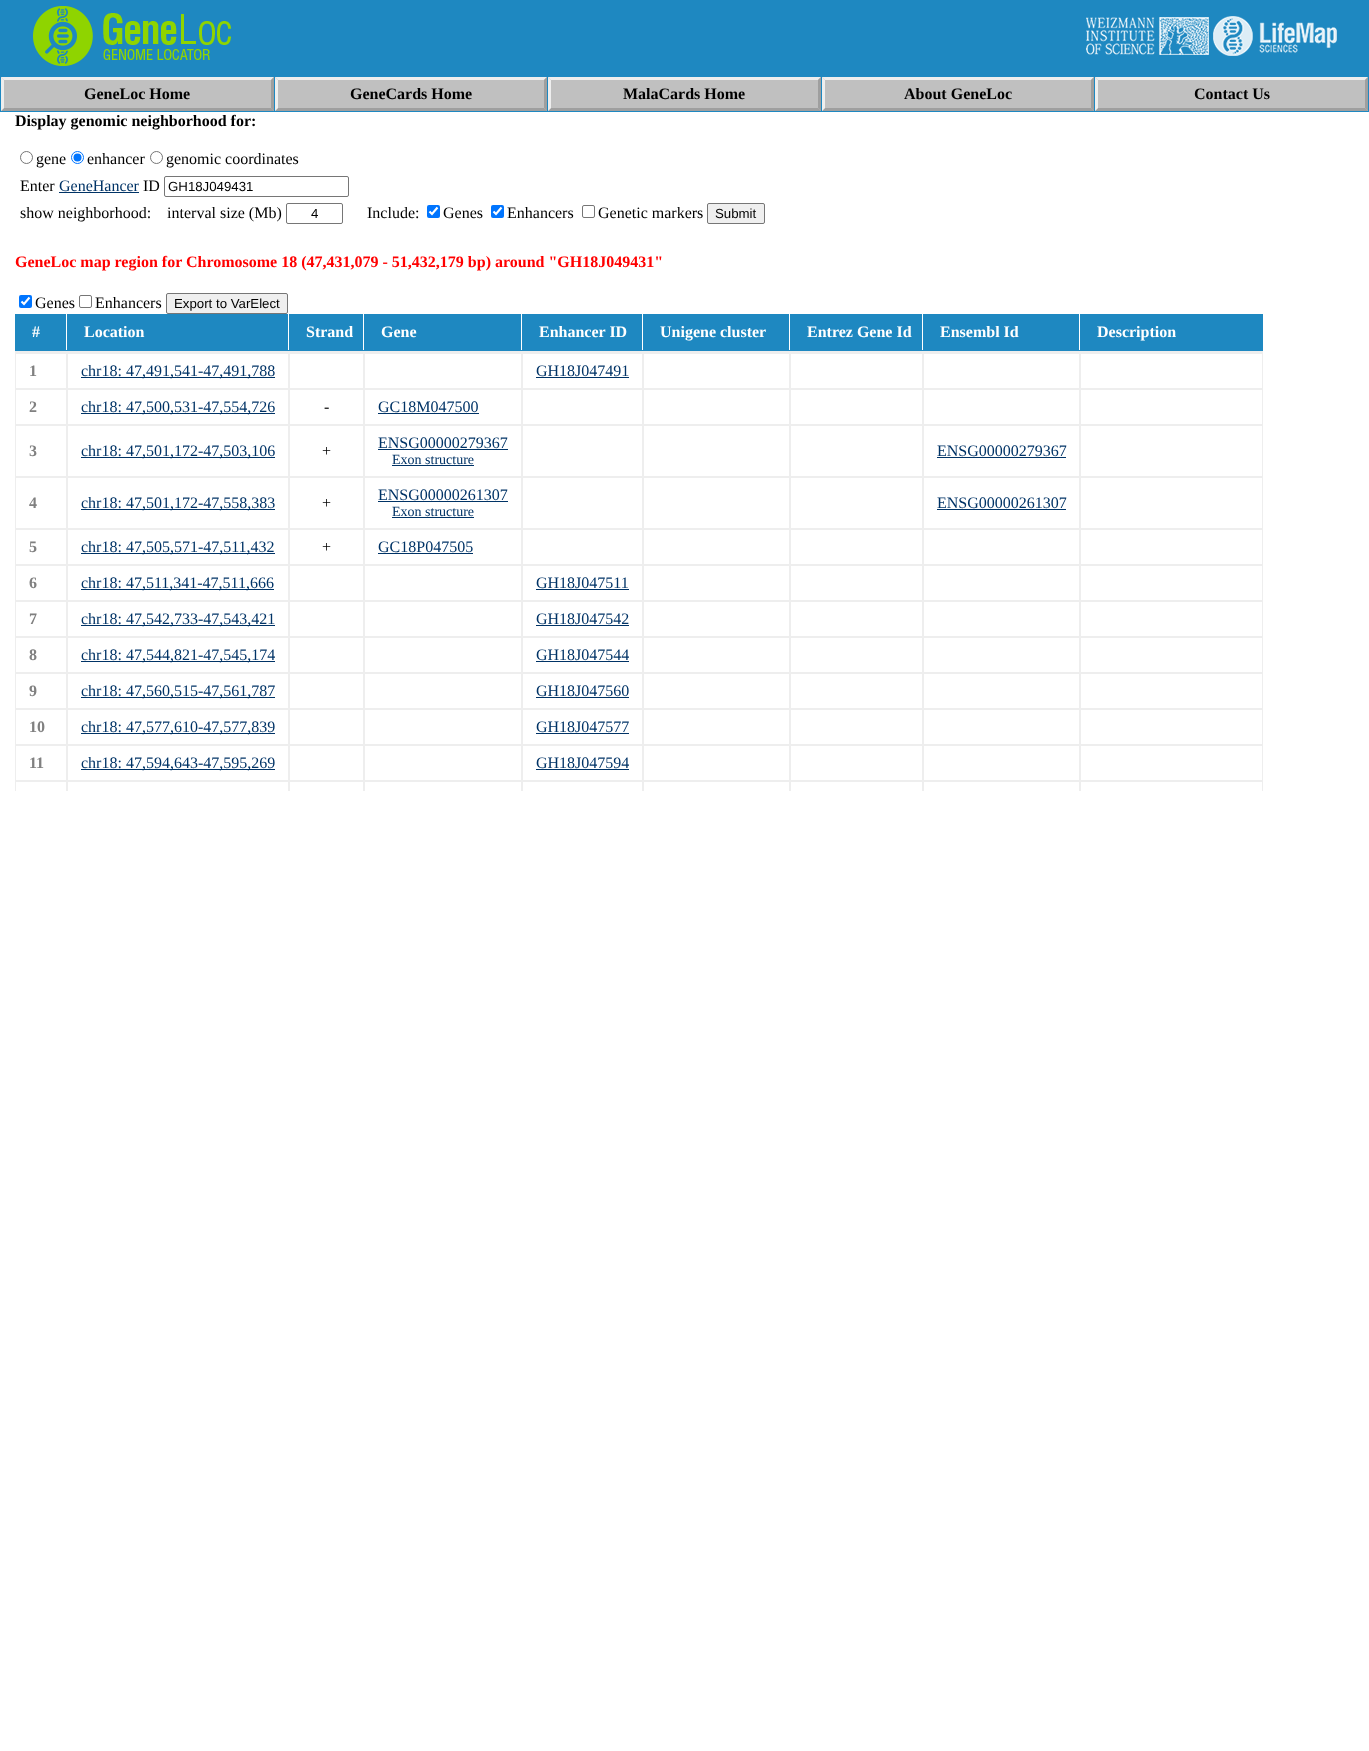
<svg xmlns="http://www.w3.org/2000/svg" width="1369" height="1751">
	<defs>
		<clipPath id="clip1"><rect x="15" y="351" width="1248" height="440" /></clipPath>
	</defs>
	<rect width="100%" height="100%" fill="#FFFFFF" />
	<rect x="0" y="0" width="1369" height="112" fill="#1E88C1" />
	<image x="33" y="6" width="198" height="60" href="assets/img1.png" />
	<image x="1086" y="17" width="123" height="38" href="assets/img2.png" />
	<image x="1213" y="16" width="124" height="40" href="assets/img3.png" />
	<rect x="1" y="77" width="273" height="34" fill="#C0C0C0" />
	<path d="M1 77H274L271 80H4Z" fill="#EEEEEE" />
	<path d="M274 77V111L271 108V80Z" fill="#9F9F9F" />
	<path d="M274 111H1L4 108H271Z" fill="#9F9F9F" />
	<path d="M1 111V77L4 80V108Z" fill="#EEEEEE" />
	<text x="84" y="99" font-family="Liberation Serif" font-size="16" font-weight="700" fill="#000000">GeneLoc Home</text>
	<rect x="275" y="77" width="272" height="34" fill="#C0C0C0" />
	<path d="M275 77H547L544 80H278Z" fill="#EEEEEE" />
	<path d="M547 77V111L544 108V80Z" fill="#9F9F9F" />
	<path d="M547 111H275L278 108H544Z" fill="#9F9F9F" />
	<path d="M275 111V77L278 80V108Z" fill="#EEEEEE" />
	<text x="350" y="99" font-family="Liberation Serif" font-size="16" font-weight="700" fill="#000000">GeneCards Home</text>
	<rect x="548" y="77" width="273" height="34" fill="#C0C0C0" />
	<path d="M548 77H821L818 80H551Z" fill="#EEEEEE" />
	<path d="M821 77V111L818 108V80Z" fill="#9F9F9F" />
	<path d="M821 111H548L551 108H818Z" fill="#9F9F9F" />
	<path d="M548 111V77L551 80V108Z" fill="#EEEEEE" />
	<text x="623" y="99" font-family="Liberation Serif" font-size="16" font-weight="700" fill="#000000">MalaCards Home</text>
	<rect x="822" y="77" width="272" height="34" fill="#C0C0C0" />
	<path d="M822 77H1094L1091 80H825Z" fill="#EEEEEE" />
	<path d="M1094 77V111L1091 108V80Z" fill="#9F9F9F" />
	<path d="M1094 111H822L825 108H1091Z" fill="#9F9F9F" />
	<path d="M822 111V77L825 80V108Z" fill="#EEEEEE" />
	<text x="904" y="99" font-family="Liberation Serif" font-size="16" font-weight="700" fill="#000000">About GeneLoc</text>
	<rect x="1095" y="77" width="273" height="34" fill="#C0C0C0" />
	<path d="M1095 77H1368L1365 80H1098Z" fill="#EEEEEE" />
	<path d="M1368 77V111L1365 108V80Z" fill="#9F9F9F" />
	<path d="M1368 111H1095L1098 108H1365Z" fill="#9F9F9F" />
	<path d="M1095 111V77L1098 80V108Z" fill="#EEEEEE" />
	<g font-family="Liberation Serif" font-size="16" font-weight="700" fill="#000000">
		<text x="1194" y="99">Contact Us</text>
		<text x="15" y="126">Display genomic neighborhood for:</text>
	</g>
	<circle cx="26.5" cy="157.5" r="6" fill="none" stroke="#767676" />
	<text x="36" y="164" font-family="Liberation Serif" font-size="16" fill="#000000">gene</text>
	<circle cx="77.5" cy="157.5" r="6" fill="none" stroke="#0075FF" />
	<circle cx="77.5" cy="157.5" r="4" fill="#0075FF" />
	<text x="87" y="164" font-family="Liberation Serif" font-size="16" fill="#000000">enhancer</text>
	<circle cx="156.5" cy="157.5" r="6" fill="none" stroke="#767676" />
	<g font-family="Liberation Serif" font-size="16" fill="#000000">
		<text x="166" y="164">genomic coordinates</text>
		<text x="20" y="191">Enter</text>
	</g>
	<text x="59" y="191" font-family="Liberation Serif" font-size="16" fill="#003366">GeneHancer</text>
	<rect x="59" y="192" width="80" height="1" fill="#003366" />
	<text x="143" y="191" font-family="Liberation Serif" font-size="16" fill="#000000">ID</text>
	<rect x="164.5" y="176.5" width="184" height="20" rx="1.5" fill="none" stroke="#767676" />
	<text x="168" y="191" font-family="Liberation Sans" font-size="13.25" fill="#000000">GH18J049431</text>
	<text x="20" y="218" font-family="Liberation Serif" font-size="16" fill="#000000" xml:space="preserve">show neighborhood:    interval size (Mb)</text>
	<rect x="286.5" y="203.5" width="56" height="20" rx="1.5" fill="none" stroke="#767676" />
	<text x="311" y="218" font-family="Liberation Sans" font-size="13.25" fill="#000000">4</text>
	<text x="367" y="218" font-family="Liberation Serif" font-size="16" fill="#000000">Include:</text>
	<rect x="427" y="205" width="13" height="13" rx="2" fill="#0075FF" />
	<path d="M429.5 211.5L432 214L437.5 207.5" fill="none" stroke="#FFFFFF" stroke-width="2.1" />
	<text x="443" y="218" font-family="Liberation Serif" font-size="16" fill="#000000">Genes</text>
	<rect x="491" y="205" width="13" height="13" rx="2" fill="#0075FF" />
	<path d="M493.5 211.5L496 214L501.5 207.5" fill="none" stroke="#FFFFFF" stroke-width="2.1" />
	<text x="507" y="218" font-family="Liberation Serif" font-size="16" fill="#000000">Enhancers</text>
	<rect x="582.5" y="205.5" width="12" height="12" rx="1.5" fill="none" stroke="#767676" />
	<text x="598" y="218" font-family="Liberation Serif" font-size="16" fill="#000000">Genetic markers</text>
	<rect x="707.5" y="203.5" width="57" height="20" rx="1.5" fill="#EFEFEF" stroke="#767676" />
	<text x="715" y="218" font-family="Liberation Sans" font-size="13.25" fill="#000000">Submit</text>
	<text x="15" y="267" font-family="Liberation Serif" font-size="16" font-weight="700" fill="#FF0000">GeneLoc map region for Chromosome 18 (47,431,079 - 51,432,179 bp) around "GH18J049431"</text>
	<rect x="19" y="295" width="13" height="13" rx="2" fill="#0075FF" />
	<path d="M21.5 301.5L24 304L29.5 297.5" fill="none" stroke="#FFFFFF" stroke-width="2.1" />
	<text x="35" y="308" font-family="Liberation Serif" font-size="16" fill="#000000">Genes</text>
	<rect x="79.5" y="295.5" width="12" height="12" rx="1.5" fill="none" stroke="#767676" />
	<text x="95" y="308" font-family="Liberation Serif" font-size="16" fill="#000000">Enhancers</text>
	<rect x="166.5" y="293.5" width="121" height="20" rx="1.5" fill="#EFEFEF" stroke="#767676" />
	<text x="174" y="308" font-family="Liberation Sans" font-size="13.25" fill="#000000">Export to VarElect</text>
	<rect x="15" y="314" width="1248" height="37" fill="#1E88C1" />
	<rect x="15" y="351" width="1248" height="2" fill="#EEEEEE" />
	<text x="32" y="337" font-family="Liberation Serif" font-size="16" font-weight="700" fill="#FFFFFF">#</text>
	<rect x="66" y="314" width="1" height="36" fill="#FFFFFF" />
	<text x="84" y="337" font-family="Liberation Serif" font-size="16" font-weight="700" fill="#FFFFFF">Location</text>
	<rect x="288" y="314" width="1" height="36" fill="#FFFFFF" />
	<text x="306" y="337" font-family="Liberation Serif" font-size="16" font-weight="700" fill="#FFFFFF">Strand</text>
	<rect x="363" y="314" width="1" height="36" fill="#FFFFFF" />
	<text x="381" y="337" font-family="Liberation Serif" font-size="16" font-weight="700" fill="#FFFFFF">Gene</text>
	<rect x="521" y="314" width="1" height="36" fill="#FFFFFF" />
	<text x="539" y="337" font-family="Liberation Serif" font-size="16" font-weight="700" fill="#FFFFFF">Enhancer ID</text>
	<rect x="642" y="314" width="1" height="36" fill="#FFFFFF" />
	<text x="660" y="337" font-family="Liberation Serif" font-size="16" font-weight="700" fill="#FFFFFF">Unigene cluster</text>
	<rect x="789" y="314" width="1" height="36" fill="#FFFFFF" />
	<text x="807" y="337" font-family="Liberation Serif" font-size="16" font-weight="700" fill="#FFFFFF">Entrez Gene Id</text>
	<rect x="922" y="314" width="1" height="36" fill="#FFFFFF" />
	<text x="940" y="337" font-family="Liberation Serif" font-size="16" font-weight="700" fill="#FFFFFF">Ensembl Id</text>
	<rect x="1079" y="314" width="1" height="36" fill="#FFFFFF" />
	<text x="1097" y="337" font-family="Liberation Serif" font-size="16" font-weight="700" fill="#FFFFFF">Description</text>
	<rect x="15.5" y="353.5" width="51" height="35" fill="none" stroke="#EEEEEE" />
	<text x="29" y="376" font-family="Liberation Serif" font-size="16" font-weight="700" fill="#808080">1</text>
	<rect x="67.5" y="353.5" width="221" height="35" fill="none" stroke="#EEEEEE" />
	<rect x="81" y="377" width="194" height="1" fill="#003366" />
	<text x="81" y="376" font-family="Liberation Serif" font-size="16" fill="#003366">chr18: 47,491,541-47,491,788</text>
	<rect x="289.5" y="353.5" width="74" height="35" fill="none" stroke="#EEEEEE" />
	<rect x="364.5" y="353.5" width="157" height="35" fill="none" stroke="#EEEEEE" />
	<rect x="522.5" y="353.5" width="120" height="35" fill="none" stroke="#EEEEEE" />
	<text x="536" y="376" font-family="Liberation Serif" font-size="16" fill="#003366">GH18J047491</text>
	<rect x="536" y="377" width="93" height="1" fill="#003366" />
	<rect x="643.5" y="353.5" width="146" height="35" fill="none" stroke="#EEEEEE" />
	<rect x="790.5" y="353.5" width="132" height="35" fill="none" stroke="#EEEEEE" />
	<rect x="923.5" y="353.5" width="156" height="35" fill="none" stroke="#EEEEEE" />
	<rect x="1080.5" y="353.5" width="182" height="35" fill="none" stroke="#EEEEEE" />
	<rect x="15.5" y="389.5" width="51" height="35" fill="none" stroke="#EEEEEE" />
	<text x="29" y="412" font-family="Liberation Serif" font-size="16" font-weight="700" fill="#808080">2</text>
	<rect x="67.5" y="389.5" width="221" height="35" fill="none" stroke="#EEEEEE" />
	<rect x="81" y="413" width="194" height="1" fill="#003366" />
	<text x="81" y="412" font-family="Liberation Serif" font-size="16" fill="#003366">chr18: 47,500,531-47,554,726</text>
	<rect x="289.5" y="389.5" width="74" height="35" fill="none" stroke="#EEEEEE" />
	<text x="324" y="412" font-family="Liberation Serif" font-size="16" fill="#000000">-</text>
	<rect x="364.5" y="389.5" width="157" height="35" fill="none" stroke="#EEEEEE" />
	<text x="378" y="412" font-family="Liberation Serif" font-size="16" fill="#003366">GC18M047500</text>
	<rect x="378" y="413" width="101" height="1" fill="#003366" />
	<rect x="522.5" y="389.5" width="120" height="35" fill="none" stroke="#EEEEEE" />
	<rect x="643.5" y="389.5" width="146" height="35" fill="none" stroke="#EEEEEE" />
	<rect x="790.5" y="389.5" width="132" height="35" fill="none" stroke="#EEEEEE" />
	<rect x="923.5" y="389.5" width="156" height="35" fill="none" stroke="#EEEEEE" />
	<rect x="1080.5" y="389.5" width="182" height="35" fill="none" stroke="#EEEEEE" />
	<rect x="15.5" y="425.5" width="51" height="51" fill="none" stroke="#EEEEEE" />
	<text x="29" y="456" font-family="Liberation Serif" font-size="16" font-weight="700" fill="#808080">3</text>
	<rect x="67.5" y="425.5" width="221" height="51" fill="none" stroke="#EEEEEE" />
	<rect x="81" y="457" width="194" height="1" fill="#003366" />
	<text x="81" y="456" font-family="Liberation Serif" font-size="16" fill="#003366">chr18: 47,501,172-47,503,106</text>
	<rect x="289.5" y="425.5" width="74" height="51" fill="none" stroke="#EEEEEE" />
	<text x="322" y="456" font-family="Liberation Serif" font-size="16" fill="#000000">+</text>
	<rect x="364.5" y="425.5" width="157" height="51" fill="none" stroke="#EEEEEE" />
	<text x="378" y="448" font-family="Liberation Serif" font-size="16" fill="#003366">ENSG00000279367</text>
	<rect x="378" y="449" width="130" height="1" fill="#003366" />
	<text x="392" y="464" font-family="Liberation Serif" font-size="14" fill="#003366">Exon structure</text>
	<rect x="392" y="465" width="82" height="1" fill="#003366" />
	<rect x="522.5" y="425.5" width="120" height="51" fill="none" stroke="#EEEEEE" />
	<rect x="643.5" y="425.5" width="146" height="51" fill="none" stroke="#EEEEEE" />
	<rect x="790.5" y="425.5" width="132" height="51" fill="none" stroke="#EEEEEE" />
	<rect x="923.5" y="425.5" width="156" height="51" fill="none" stroke="#EEEEEE" />
	<text x="937" y="456" font-family="Liberation Serif" font-size="16" fill="#003366">ENSG00000279367</text>
	<rect x="937" y="457" width="129" height="1" fill="#003366" />
	<rect x="1080.5" y="425.5" width="182" height="51" fill="none" stroke="#EEEEEE" />
	<rect x="15.5" y="477.5" width="51" height="51" fill="none" stroke="#EEEEEE" />
	<text x="29" y="508" font-family="Liberation Serif" font-size="16" font-weight="700" fill="#808080">4</text>
	<rect x="67.5" y="477.5" width="221" height="51" fill="none" stroke="#EEEEEE" />
	<rect x="81" y="509" width="194" height="1" fill="#003366" />
	<text x="81" y="508" font-family="Liberation Serif" font-size="16" fill="#003366">chr18: 47,501,172-47,558,383</text>
	<rect x="289.5" y="477.5" width="74" height="51" fill="none" stroke="#EEEEEE" />
	<text x="322" y="508" font-family="Liberation Serif" font-size="16" fill="#000000">+</text>
	<rect x="364.5" y="477.5" width="157" height="51" fill="none" stroke="#EEEEEE" />
	<text x="378" y="500" font-family="Liberation Serif" font-size="16" fill="#003366">ENSG00000261307</text>
	<rect x="378" y="501" width="130" height="1" fill="#003366" />
	<text x="392" y="516" font-family="Liberation Serif" font-size="14" fill="#003366">Exon structure</text>
	<rect x="392" y="517" width="82" height="1" fill="#003366" />
	<rect x="522.5" y="477.5" width="120" height="51" fill="none" stroke="#EEEEEE" />
	<rect x="643.5" y="477.5" width="146" height="51" fill="none" stroke="#EEEEEE" />
	<rect x="790.5" y="477.5" width="132" height="51" fill="none" stroke="#EEEEEE" />
	<rect x="923.5" y="477.5" width="156" height="51" fill="none" stroke="#EEEEEE" />
	<text x="937" y="508" font-family="Liberation Serif" font-size="16" fill="#003366">ENSG00000261307</text>
	<rect x="937" y="509" width="129" height="1" fill="#003366" />
	<rect x="1080.5" y="477.5" width="182" height="51" fill="none" stroke="#EEEEEE" />
	<rect x="15.5" y="529.5" width="51" height="35" fill="none" stroke="#EEEEEE" />
	<text x="29" y="552" font-family="Liberation Serif" font-size="16" font-weight="700" fill="#808080">5</text>
	<rect x="67.5" y="529.5" width="221" height="35" fill="none" stroke="#EEEEEE" />
	<rect x="81" y="553" width="194" height="1" fill="#003366" />
	<text x="81" y="552" font-family="Liberation Serif" font-size="16" fill="#003366">chr18: 47,505,571-47,511,432</text>
	<rect x="289.5" y="529.5" width="74" height="35" fill="none" stroke="#EEEEEE" />
	<text x="322" y="552" font-family="Liberation Serif" font-size="16" fill="#000000">+</text>
	<rect x="364.5" y="529.5" width="157" height="35" fill="none" stroke="#EEEEEE" />
	<text x="378" y="552" font-family="Liberation Serif" font-size="16" fill="#003366">GC18P047505</text>
	<rect x="378" y="553" width="95" height="1" fill="#003366" />
	<rect x="522.5" y="529.5" width="120" height="35" fill="none" stroke="#EEEEEE" />
	<rect x="643.5" y="529.5" width="146" height="35" fill="none" stroke="#EEEEEE" />
	<rect x="790.5" y="529.5" width="132" height="35" fill="none" stroke="#EEEEEE" />
	<rect x="923.5" y="529.5" width="156" height="35" fill="none" stroke="#EEEEEE" />
	<rect x="1080.5" y="529.5" width="182" height="35" fill="none" stroke="#EEEEEE" />
	<rect x="15.5" y="565.5" width="51" height="35" fill="none" stroke="#EEEEEE" />
	<text x="29" y="588" font-family="Liberation Serif" font-size="16" font-weight="700" fill="#808080">6</text>
	<rect x="67.5" y="565.5" width="221" height="35" fill="none" stroke="#EEEEEE" />
	<rect x="81" y="589" width="193" height="1" fill="#003366" />
	<text x="81" y="588" font-family="Liberation Serif" font-size="16" fill="#003366">chr18: 47,511,341-47,511,666</text>
	<rect x="289.5" y="565.5" width="74" height="35" fill="none" stroke="#EEEEEE" />
	<rect x="364.5" y="565.5" width="157" height="35" fill="none" stroke="#EEEEEE" />
	<rect x="522.5" y="565.5" width="120" height="35" fill="none" stroke="#EEEEEE" />
	<text x="536" y="588" font-family="Liberation Serif" font-size="16" fill="#003366">GH18J047511</text>
	<rect x="536" y="589" width="93" height="1" fill="#003366" />
	<rect x="643.5" y="565.5" width="146" height="35" fill="none" stroke="#EEEEEE" />
	<rect x="790.5" y="565.5" width="132" height="35" fill="none" stroke="#EEEEEE" />
	<rect x="923.5" y="565.5" width="156" height="35" fill="none" stroke="#EEEEEE" />
	<rect x="1080.5" y="565.5" width="182" height="35" fill="none" stroke="#EEEEEE" />
	<rect x="15.5" y="601.5" width="51" height="35" fill="none" stroke="#EEEEEE" />
	<text x="29" y="624" font-family="Liberation Serif" font-size="16" font-weight="700" fill="#808080">7</text>
	<rect x="67.5" y="601.5" width="221" height="35" fill="none" stroke="#EEEEEE" />
	<rect x="81" y="625" width="194" height="1" fill="#003366" />
	<text x="81" y="624" font-family="Liberation Serif" font-size="16" fill="#003366">chr18: 47,542,733-47,543,421</text>
	<rect x="289.5" y="601.5" width="74" height="35" fill="none" stroke="#EEEEEE" />
	<rect x="364.5" y="601.5" width="157" height="35" fill="none" stroke="#EEEEEE" />
	<rect x="522.5" y="601.5" width="120" height="35" fill="none" stroke="#EEEEEE" />
	<text x="536" y="624" font-family="Liberation Serif" font-size="16" fill="#003366">GH18J047542</text>
	<rect x="536" y="625" width="93" height="1" fill="#003366" />
	<rect x="643.5" y="601.5" width="146" height="35" fill="none" stroke="#EEEEEE" />
	<rect x="790.5" y="601.5" width="132" height="35" fill="none" stroke="#EEEEEE" />
	<rect x="923.5" y="601.5" width="156" height="35" fill="none" stroke="#EEEEEE" />
	<rect x="1080.5" y="601.5" width="182" height="35" fill="none" stroke="#EEEEEE" />
	<rect x="15.5" y="637.5" width="51" height="35" fill="none" stroke="#EEEEEE" />
	<text x="29" y="660" font-family="Liberation Serif" font-size="16" font-weight="700" fill="#808080">8</text>
	<rect x="67.5" y="637.5" width="221" height="35" fill="none" stroke="#EEEEEE" />
	<rect x="81" y="661" width="194" height="1" fill="#003366" />
	<text x="81" y="660" font-family="Liberation Serif" font-size="16" fill="#003366">chr18: 47,544,821-47,545,174</text>
	<rect x="289.5" y="637.5" width="74" height="35" fill="none" stroke="#EEEEEE" />
	<rect x="364.5" y="637.5" width="157" height="35" fill="none" stroke="#EEEEEE" />
	<rect x="522.5" y="637.5" width="120" height="35" fill="none" stroke="#EEEEEE" />
	<text x="536" y="660" font-family="Liberation Serif" font-size="16" fill="#003366">GH18J047544</text>
	<rect x="536" y="661" width="93" height="1" fill="#003366" />
	<rect x="643.5" y="637.5" width="146" height="35" fill="none" stroke="#EEEEEE" />
	<rect x="790.5" y="637.5" width="132" height="35" fill="none" stroke="#EEEEEE" />
	<rect x="923.5" y="637.5" width="156" height="35" fill="none" stroke="#EEEEEE" />
	<rect x="1080.5" y="637.5" width="182" height="35" fill="none" stroke="#EEEEEE" />
	<rect x="15.5" y="673.5" width="51" height="35" fill="none" stroke="#EEEEEE" />
	<text x="29" y="696" font-family="Liberation Serif" font-size="16" font-weight="700" fill="#808080">9</text>
	<rect x="67.5" y="673.5" width="221" height="35" fill="none" stroke="#EEEEEE" />
	<rect x="81" y="697" width="194" height="1" fill="#003366" />
	<text x="81" y="696" font-family="Liberation Serif" font-size="16" fill="#003366">chr18: 47,560,515-47,561,787</text>
	<rect x="289.5" y="673.5" width="74" height="35" fill="none" stroke="#EEEEEE" />
	<rect x="364.5" y="673.5" width="157" height="35" fill="none" stroke="#EEEEEE" />
	<rect x="522.5" y="673.5" width="120" height="35" fill="none" stroke="#EEEEEE" />
	<text x="536" y="696" font-family="Liberation Serif" font-size="16" fill="#003366">GH18J047560</text>
	<rect x="536" y="697" width="93" height="1" fill="#003366" />
	<rect x="643.5" y="673.5" width="146" height="35" fill="none" stroke="#EEEEEE" />
	<rect x="790.5" y="673.5" width="132" height="35" fill="none" stroke="#EEEEEE" />
	<rect x="923.5" y="673.5" width="156" height="35" fill="none" stroke="#EEEEEE" />
	<rect x="1080.5" y="673.5" width="182" height="35" fill="none" stroke="#EEEEEE" />
	<rect x="15.5" y="709.5" width="51" height="35" fill="none" stroke="#EEEEEE" />
	<text x="29" y="732" font-family="Liberation Serif" font-size="16" font-weight="700" fill="#808080">10</text>
	<rect x="67.5" y="709.5" width="221" height="35" fill="none" stroke="#EEEEEE" />
	<rect x="81" y="733" width="194" height="1" fill="#003366" />
	<text x="81" y="732" font-family="Liberation Serif" font-size="16" fill="#003366">chr18: 47,577,610-47,577,839</text>
	<rect x="289.5" y="709.5" width="74" height="35" fill="none" stroke="#EEEEEE" />
	<rect x="364.5" y="709.5" width="157" height="35" fill="none" stroke="#EEEEEE" />
	<rect x="522.5" y="709.5" width="120" height="35" fill="none" stroke="#EEEEEE" />
	<text x="536" y="732" font-family="Liberation Serif" font-size="16" fill="#003366">GH18J047577</text>
	<rect x="536" y="733" width="93" height="1" fill="#003366" />
	<rect x="643.5" y="709.5" width="146" height="35" fill="none" stroke="#EEEEEE" />
	<rect x="790.5" y="709.5" width="132" height="35" fill="none" stroke="#EEEEEE" />
	<rect x="923.5" y="709.5" width="156" height="35" fill="none" stroke="#EEEEEE" />
	<rect x="1080.5" y="709.5" width="182" height="35" fill="none" stroke="#EEEEEE" />
	<rect x="15.5" y="745.5" width="51" height="35" fill="none" stroke="#EEEEEE" />
	<text x="29" y="768" font-family="Liberation Serif" font-size="16" font-weight="700" fill="#808080">11</text>
	<rect x="67.5" y="745.5" width="221" height="35" fill="none" stroke="#EEEEEE" />
	<rect x="81" y="769" width="194" height="1" fill="#003366" />
	<text x="81" y="768" font-family="Liberation Serif" font-size="16" fill="#003366">chr18: 47,594,643-47,595,269</text>
	<rect x="289.5" y="745.5" width="74" height="35" fill="none" stroke="#EEEEEE" />
	<rect x="364.5" y="745.5" width="157" height="35" fill="none" stroke="#EEEEEE" />
	<rect x="522.5" y="745.5" width="120" height="35" fill="none" stroke="#EEEEEE" />
	<text x="536" y="768" font-family="Liberation Serif" font-size="16" fill="#003366">GH18J047594</text>
	<rect x="536" y="769" width="93" height="1" fill="#003366" />
	<rect x="643.5" y="745.5" width="146" height="35" fill="none" stroke="#EEEEEE" />
	<rect x="790.5" y="745.5" width="132" height="35" fill="none" stroke="#EEEEEE" />
	<rect x="923.5" y="745.5" width="156" height="35" fill="none" stroke="#EEEEEE" />
	<rect x="1080.5" y="745.5" width="182" height="35" fill="none" stroke="#EEEEEE" />
	<g clip-path="url(#clip1)">
		<rect x="15.5" y="781.5" width="51" height="71" fill="none" stroke="#EEEEEE" />
		<rect x="67.5" y="781.5" width="221" height="71" fill="none" stroke="#EEEEEE" />
		<rect x="289.5" y="781.5" width="74" height="71" fill="none" stroke="#EEEEEE" />
		<rect x="364.5" y="781.5" width="157" height="71" fill="none" stroke="#EEEEEE" />
		<rect x="522.5" y="781.5" width="120" height="71" fill="none" stroke="#EEEEEE" />
		<rect x="643.5" y="781.5" width="146" height="71" fill="none" stroke="#EEEEEE" />
		<rect x="790.5" y="781.5" width="132" height="71" fill="none" stroke="#EEEEEE" />
		<rect x="923.5" y="781.5" width="156" height="71" fill="none" stroke="#EEEEEE" />
		<rect x="1080.5" y="781.5" width="182" height="71" fill="none" stroke="#EEEEEE" />
	</g>
</svg>
